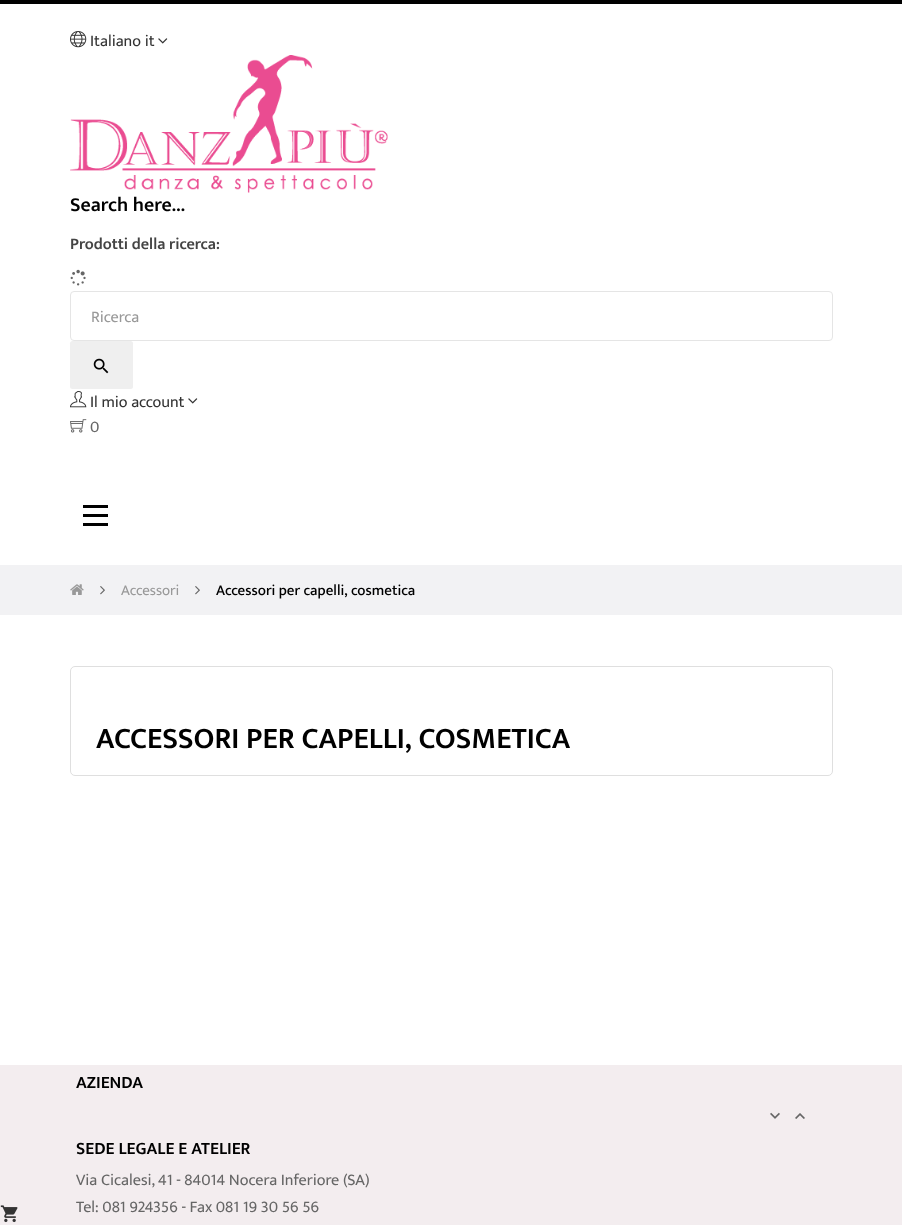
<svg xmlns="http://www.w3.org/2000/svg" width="902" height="1225">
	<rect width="100%" height="100%" fill="#FFFFFF" />
	<rect x="0" y="1065" width="902" height="160" fill="#F3EDEF" />
	<image x="0" y="1205" width="18" height="18" href="assets/img1.png" />
	<rect x="0" y="0" width="902" height="4" fill="#000000" />
	<image x="70" y="31" width="17" height="17" href="assets/img2.png" />
	<text x="90" y="46" font-family="Ek Mukta" font-size="16.25" fill="#333333">Italiano it</text>
	<image x="158" y="38" width="10" height="6" href="assets/img3.png" />
	<image x="70" y="55" width="318" height="138" href="assets/img4.png" />
	<text x="70" y="211" font-family="Ek Mukta" font-size="20" font-weight="600" fill="#000000">Search here...</text>
	<text x="70" y="249" font-family="Ek Mukta" font-size="16.25" font-weight="600" fill="#444444">Prodotti della ricerca:</text>
	<image x="70" y="269" width="16" height="17" href="assets/img5.png" />
	<rect x="70.5" y="291.5" width="762" height="49" rx="3.5" fill="none" stroke="#E5E5E5" />
	<text x="91" y="322" font-family="Ek Mukta" font-size="16.25" fill="#999999">Ricerca</text>
	<rect x="70" y="341" width="63" height="48" rx="2.5" fill="#EFEFEF" />
	<image x="93" y="358" width="16" height="16" href="assets/img6.png" />
	<image x="70" y="391" width="17" height="17" href="assets/img7.png" />
	<text x="90" y="407" font-family="Ek Mukta" font-size="16.25" fill="#333333">Il mio account</text>
	<image x="188" y="398" width="10" height="6" href="assets/img3.png" />
	<image x="70" y="419" width="17" height="14" href="assets/img8.png" />
	<text x="90" y="432" font-family="Ek Mukta" font-size="16.25" fill="#666666">0</text>
	<rect x="83" y="505" width="25" height="3" fill="#000000" />
	<rect x="83" y="523" width="25" height="3" fill="#000000" />
	<rect x="83" y="514" width="25" height="3" fill="#000000" />
	<rect x="0" y="565" width="902" height="50" fill="#F2F2F4" />
	<image x="70" y="584" width="14" height="11" href="assets/img9.png" />
	<image x="100" y="586" width="5" height="9" href="assets/img10.png" />
	<text x="121" y="595" font-family="Ek Mukta" font-size="15" fill="#999999">Accessori</text>
	<image x="195" y="586" width="5" height="9" href="assets/img10.png" />
	<text x="216" y="595" font-family="Ek Mukta" font-size="15" font-weight="500" fill="#000000">Accessori per capelli, cosmetica</text>
	<rect x="70.5" y="666.5" width="762" height="109" rx="4.5" fill="none" stroke="#DFDFDF" />
	<text x="96" y="748" font-family="Ek Mukta" font-size="30" font-weight="600" fill="#000000">ACCESSORI PER CAPELLI, COSMETICA</text>
	<text x="76" y="1088" font-family="Ek Mukta" font-size="17.5" font-weight="600" fill="#000000">AZIENDA</text>
	<image x="770" y="1112" width="10" height="7" href="assets/img11.png" />
	<image x="795" y="1113" width="10" height="6" href="assets/img12.png" />
	<text x="76" y="1154" font-family="Ek Mukta" font-size="17.5" font-weight="600" fill="#000000">SEDE LEGALE E ATELIER</text>
	<g font-family="Ek Mukta" font-size="16.25" fill="#666666">
		<text x="76" y="1185">Via Cicalesi, 41 - 84014 Nocera Inferiore (SA)</text>
		<text x="76" y="1212">Tel: 081 924356 - Fax 081 19 30 56 56</text>
	</g>
</svg>
